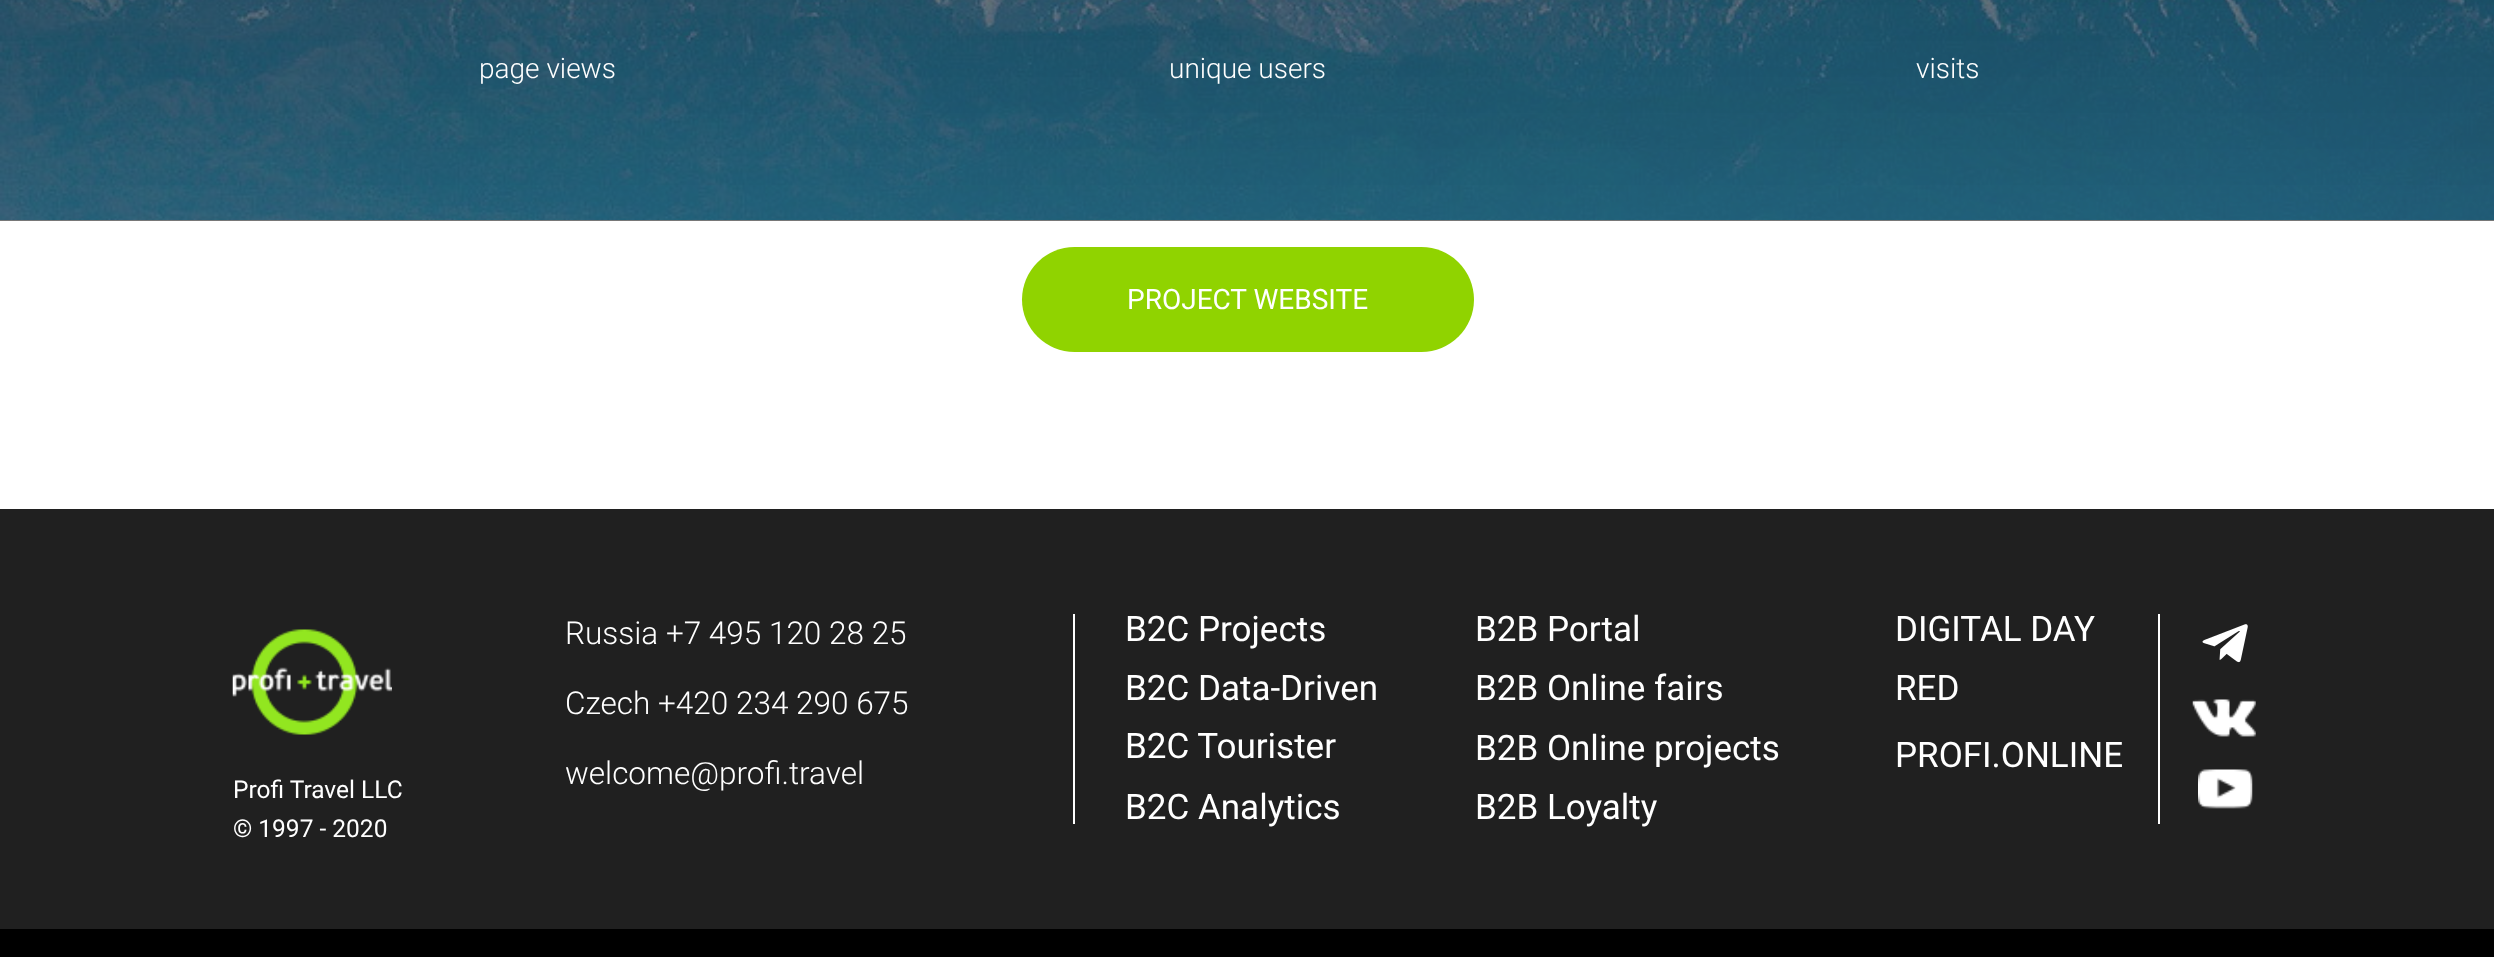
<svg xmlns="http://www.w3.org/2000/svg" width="2494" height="957">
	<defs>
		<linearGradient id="g1" gradientUnits="userSpaceOnUse" x1="1248" y1="-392" x2="1248" y2="221"><stop offset="0" stop-color="#CCCCCC" /><stop offset="1" stop-color="#777777" /></linearGradient>
	</defs>
	<rect width="100%" height="100%" fill="#FFFFFF" />
	<rect x="0" y="220" width="2494" height="1" fill="url(#g1)" />
	<image x="0" y="0" width="2494" height="220" href="assets/img1.png" />
	<g font-family="Roboto" font-size="28" font-weight="300" fill="#FFFFFF">
		<text x="479" y="78">page views</text>
		<text x="1169" y="78">unique users</text>
		<text x="1916" y="78">visits</text>
	</g>
	<rect x="1022" y="247" width="452" height="105" rx="52.5" fill="#90D300" />
	<text x="1127" y="309" font-family="Roboto" font-size="28" fill="#FFFFFF">PROJECT WEBSITE</text>
	<rect x="0" y="509" width="2494" height="420" fill="#202020" />
	<image x="232" y="629" width="160" height="106" href="assets/img2.png" />
	<text x="565" y="644" font-family="Roboto" font-size="31.5" font-weight="300" fill="#FFFFFF">Russia +7 495 120 28 25</text>
	<rect x="1073" y="614" width="2" height="210" fill="#FFFFFF" />
	<g font-family="Roboto" font-size="35" fill="#FFFFFF">
		<text x="1125" y="641">B2C Projects</text>
		<text x="1475" y="641">B2B Portal</text>
		<text x="1895" y="641">DIGITAL DAY</text>
	</g>
	<rect x="2158" y="614" width="2" height="210" fill="#FFFFFF" />
	<image x="2202" y="624" width="46" height="39" href="assets/img3.png" />
	<g font-family="Roboto" font-size="35" fill="#FFFFFF">
		<text x="1125" y="700">B2C Data-Driven</text>
		<text x="1475" y="700">B2B Online fairs</text>
		<text x="1895" y="700">RED</text>
	</g>
	<text x="565" y="714" font-family="Roboto" font-size="31.5" font-weight="300" fill="#FFFFFF">Czech +420 234 290 675</text>
	<image x="2192" y="699" width="64" height="38" href="assets/img4.png" />
	<g font-family="Roboto" font-size="35" fill="#FFFFFF">
		<text x="1125" y="758">B2C Tourister</text>
		<text x="1475" y="760">B2B Online projects</text>
		<text x="1895" y="767">PROFI.ONLINE</text>
	</g>
	<g font-family="Roboto" font-size="24.5" fill="#FFFFFF">
		<text x="233" y="798">Profi Travel LLC</text>
		<text x="233" y="837">© 1997 - 2020</text>
	</g>
	<text x="565" y="784" font-family="Roboto" font-size="31.5" font-weight="300" fill="#FFFFFF">welcome@profi.travel</text>
	<g font-family="Roboto" font-size="35" fill="#FFFFFF">
		<text x="1125" y="819">B2C Analytics</text>
		<text x="1475" y="819">B2B Loyalty</text>
	</g>
	<image x="2198" y="769" width="55" height="40" href="assets/img5.png" />
	<rect x="0" y="929" width="2494" height="28" fill="#000000" />
</svg>
